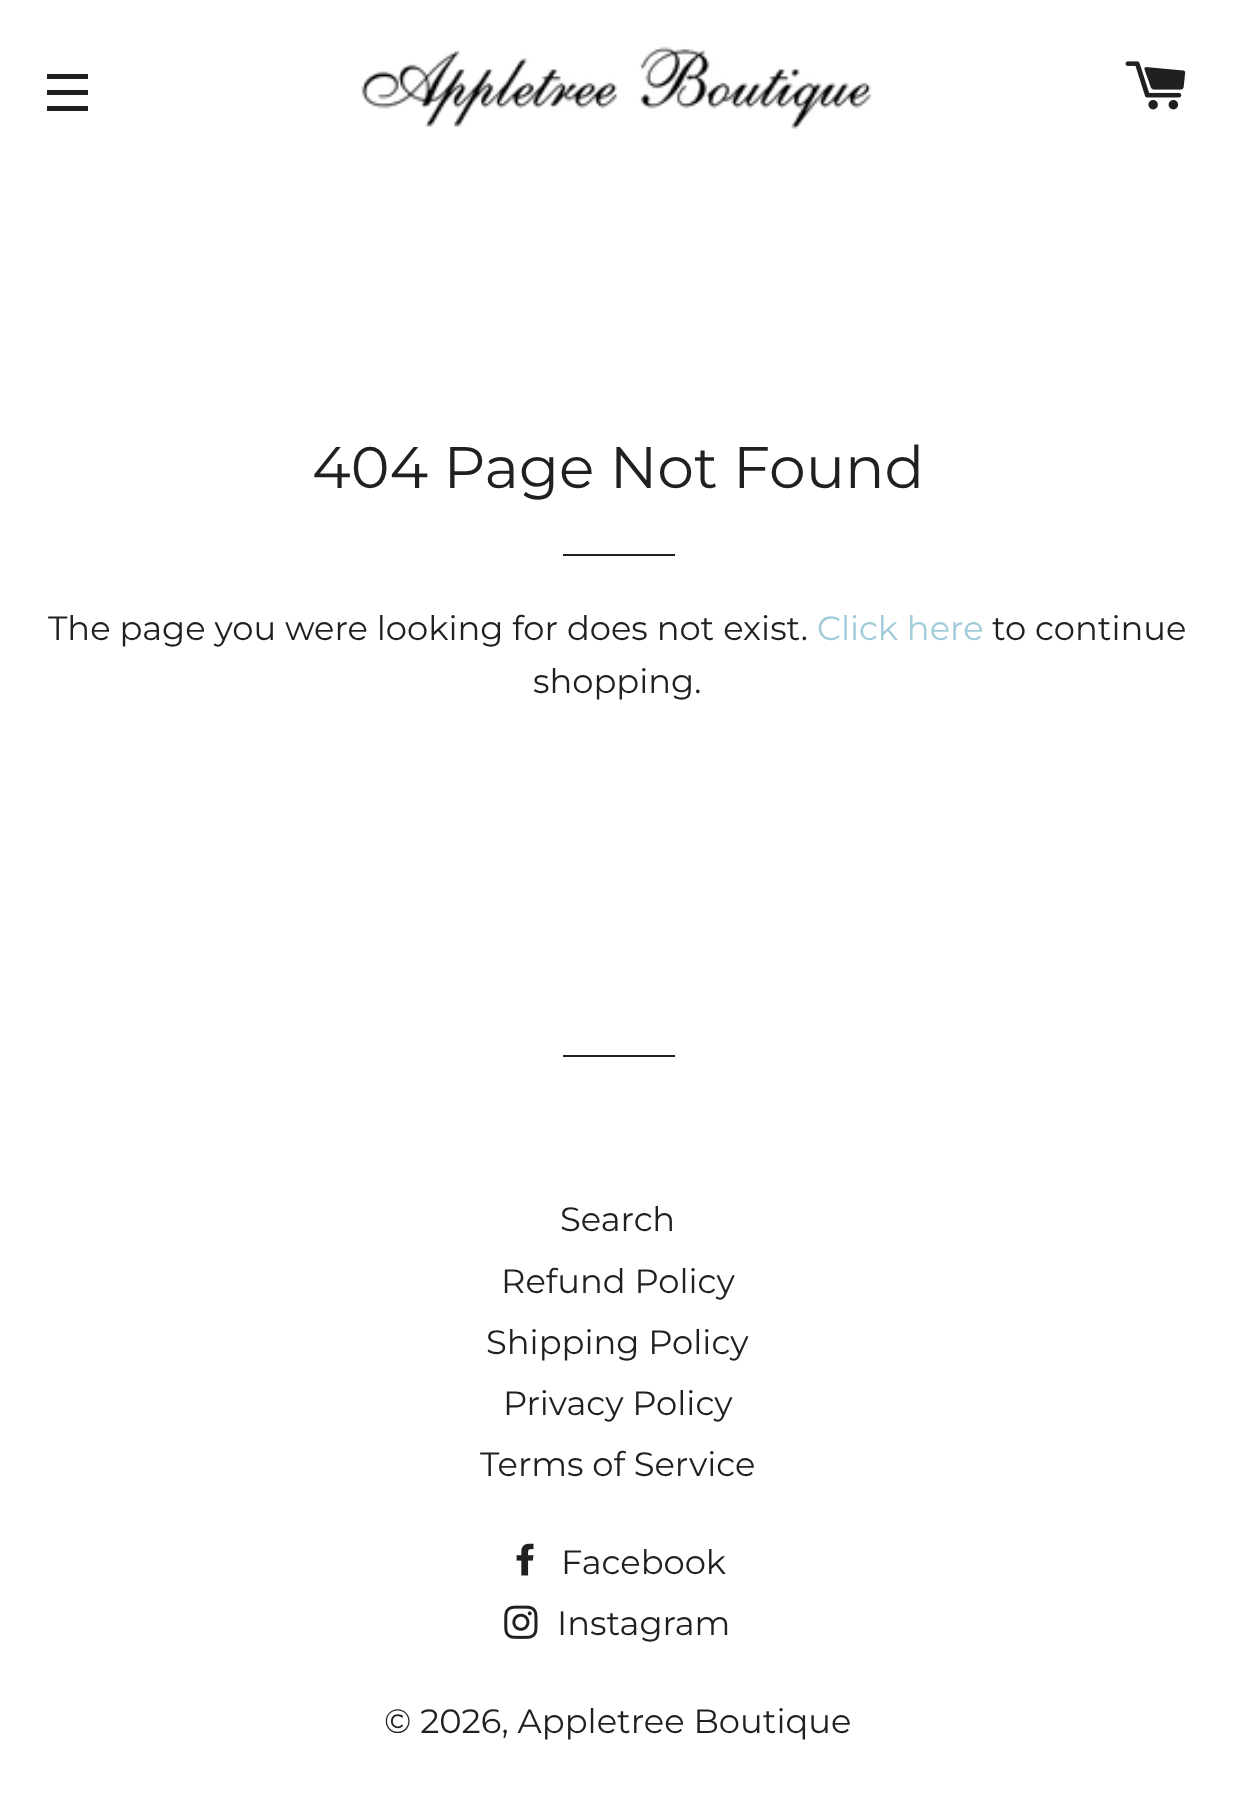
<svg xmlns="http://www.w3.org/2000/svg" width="1235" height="1798">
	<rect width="100%" height="100%" fill="#FFFFFF" />
	<rect x="47" y="74" width="41" height="5" fill="#1F2021" />
	<rect x="47" y="90" width="41" height="5" fill="#1F2021" />
	<rect x="47" y="106" width="41" height="5" fill="#1F2021" />
	<image x="361" y="46" width="511" height="83" href="assets/img1.png" />
	<image x="1125" y="61" width="61" height="49" href="assets/img2.png" />
	<text x="312" y="488" font-family="Montserrat" font-size="58.5" fill="#1F2021">404 Page Not Found</text>
	<rect x="563" y="554" width="112" height="2" fill="#1F2021" />
	<text x="48" y="640" font-family="Montserrat" font-size="33.75" fill="#1F2021">The page you were looking for does not exist.</text>
	<text x="817" y="640" font-family="Montserrat" font-size="33.75" fill="#A0CCD9">Click here</text>
	<g font-family="Montserrat" font-size="33.75" fill="#1F2021">
		<text x="992" y="640">to continue</text>
		<text x="533" y="693">shopping.</text>
	</g>
	<rect x="563" y="1055" width="112" height="2" fill="#1F2021" />
	<g font-family="Montserrat" font-size="33.75" fill="#1F2021">
		<text x="560" y="1231">Search</text>
		<text x="501" y="1293">Refund Policy</text>
		<text x="486" y="1354">Shipping Policy</text>
		<text x="503" y="1415">Privacy Policy</text>
		<text x="480" y="1476">Terms of Service</text>
	</g>
	<image x="516" y="1543" width="18" height="33" href="assets/img3.png" />
	<text x="561" y="1574" font-family="Montserrat" font-size="33.75" fill="#1F2021">Facebook</text>
	<image x="504" y="1605" width="34" height="34" href="assets/img4.png" />
	<g font-family="Montserrat" font-size="33.75" fill="#1F2021">
		<text x="557" y="1635">Instagram</text>
		<text x="384" y="1733">© 2026, Appletree Boutique</text>
	</g>
</svg>
